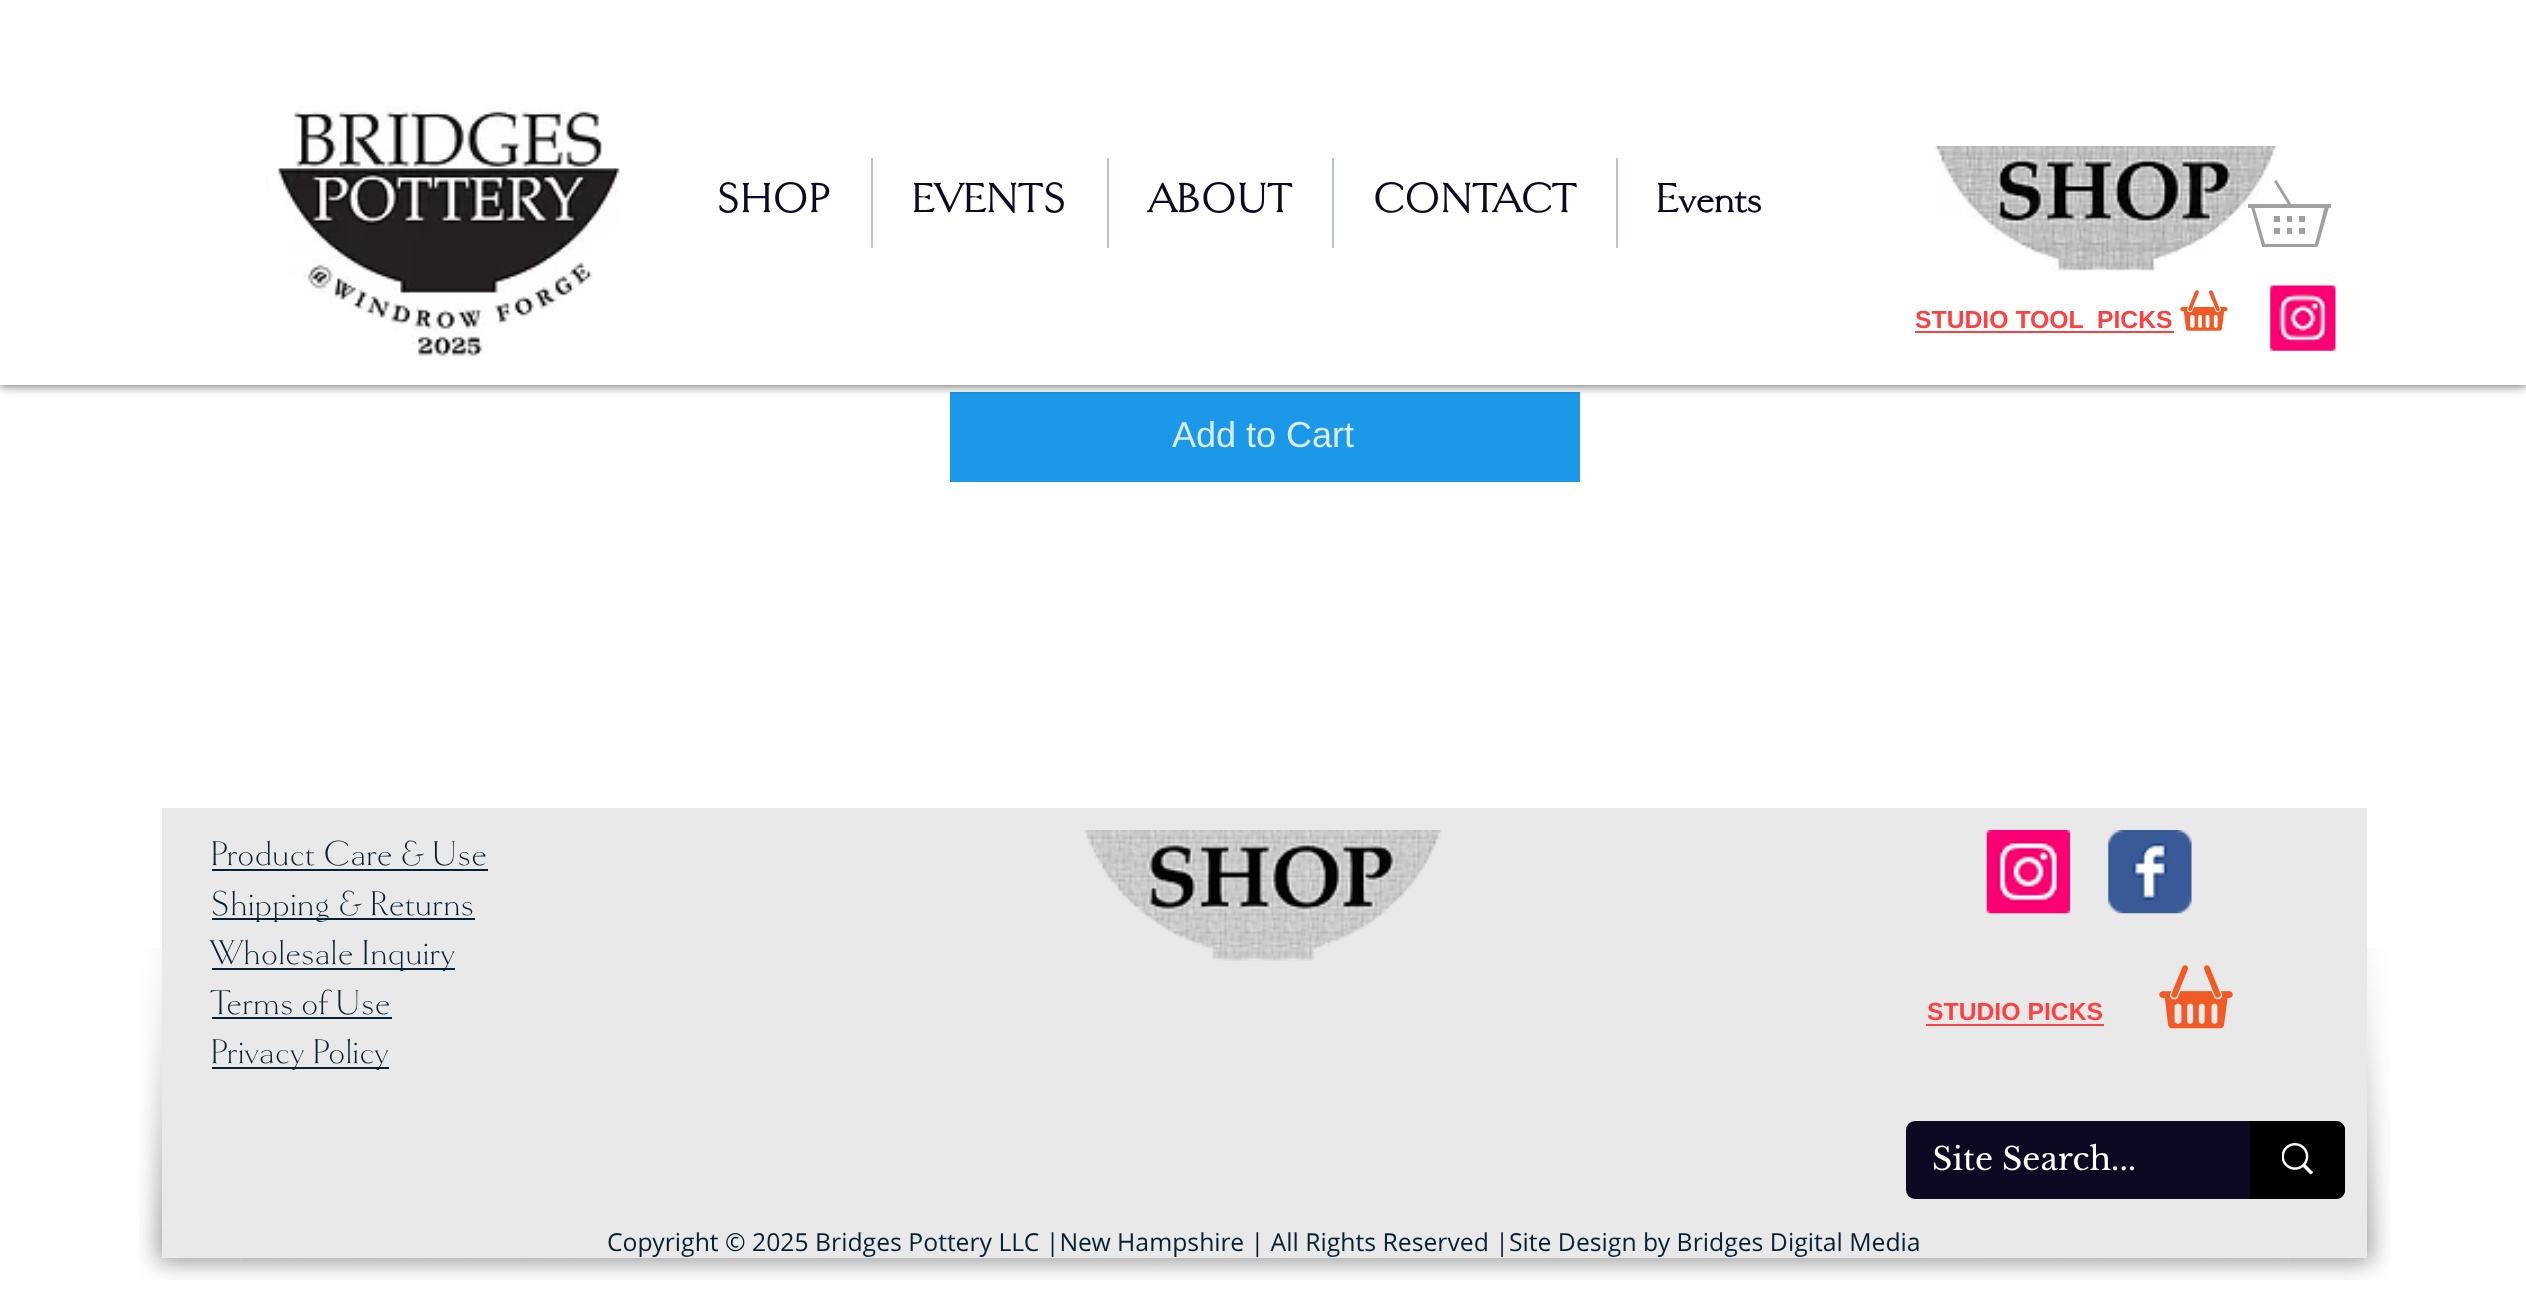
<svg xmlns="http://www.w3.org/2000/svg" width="2526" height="1290">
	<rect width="100%" height="100%" fill="#FFFFFF" />
	<rect x="950" y="392" width="630" height="90" fill="#1B99E8" />
	<rect x="0" y="0" width="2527" height="385" fill="#000000" fill-opacity="0.7" filter="blur(5.5px)" />
	<rect x="0" y="0" width="2526" height="385" fill="#FFFFFF" />
	<image x="266" y="124" width="2" height="180" href="assets/img1.png" />
	<image x="268" y="106" width="352" height="252" href="assets/img2.png" />
	<text x="716" y="212" font-family="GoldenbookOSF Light" font-size="47.25" font-weight="700" fill="#0D0923">SHOP</text>
	<rect x="871" y="158" width="2" height="90" fill="#B8C5C2" />
	<text x="911" y="212" font-family="GoldenbookOSF Light" font-size="47.25" font-weight="700" fill="#0D0923">EVENTS</text>
	<rect x="1107" y="158" width="2" height="90" fill="#B8C5C2" />
	<text x="1148" y="212" font-family="GoldenbookOSF Light" font-size="47.25" font-weight="700" fill="#0D0923">ABOUT</text>
	<rect x="1332" y="158" width="2" height="90" fill="#B8C5C2" />
	<text x="1372" y="212" font-family="GoldenbookOSF Light" font-size="47.25" font-weight="700" fill="#0D0923">CONTACT</text>
	<rect x="1616" y="158" width="2" height="90" fill="#B8C5C2" />
	<text x="1655" y="212" font-family="GoldenbookOSF Light" font-size="47.25" font-weight="700" fill="#0D0923">Events</text>
	<image x="1935" y="146" width="342" height="126" href="assets/img3.png" />
	<rect x="2248" y="204" width="83" height="4" fill="#A0A09F" />
	<path d="M2316 247H2263C2262 247 2262 247 2262 246L2251 207L2254 206L2265 244H2315L2325 206L2329 207L2318 246Z" fill="#A0A09F" />
	<path d="M2289 206L2274 181.5L2276.5 180L2291.5 204.5Z" fill="#A0A09F" />
	<rect x="2287" y="216" width="5" height="6" fill="#A0A09F" />
	<rect x="2299" y="216" width="6" height="6" fill="#A0A09F" />
	<rect x="2274" y="216" width="6" height="6" fill="#A0A09F" />
	<rect x="2287" y="228" width="5" height="6" fill="#A0A09F" />
	<rect x="2299" y="228" width="6" height="6" fill="#A0A09F" />
	<rect x="2274" y="228" width="6" height="6" fill="#A0A09F" />
	<text x="1915" y="328" font-family="Liberation Sans" font-size="24.75" font-weight="700" fill="#FF4040" xml:space="preserve">STUDIO TOOL  PICKS</text>
	<rect x="1915" y="331" width="259" height="2" fill="#FF4040" />
	<image x="2180" y="290" width="48" height="41" href="assets/img4.png" />
	<image x="2270" y="285" width="66" height="66" href="assets/img5.png" />
	<text x="1172" y="447" font-family="Liberation Sans" font-size="36" fill="#DAEDFF">Add to Cart</text>
	<image x="139" y="948" width="102" height="332" href="assets/img6.png" />
	<image x="240" y="1258" width="2049" height="22" href="assets/img7.png" />
	<image x="2288" y="948" width="102" height="332" href="assets/img8.png" />
	<rect x="162" y="808" width="2205" height="450" fill="#EAE9E9" />
	<text x="210" y="865" font-family="GoldenbookOSF Light" font-size="40.5" font-weight="300" fill="#062134">Product Care &amp; Use</text>
	<rect x="212" y="869" width="276" height="2" fill="#062134" />
	<rect x="212" y="918" width="263" height="2" fill="#062134" />
	<text x="210" y="915" font-family="GoldenbookOSF Light" font-size="40.5" font-weight="300" fill="#062134">Shipping &amp; Returns</text>
	<rect x="212" y="968" width="243" height="2" fill="#062134" />
	<g font-family="GoldenbookOSF Light" font-size="40.5" font-weight="300" fill="#062134">
		<text x="210" y="964">Wholesale Inquiry</text>
		<text x="210" y="1014">Terms of Use</text>
	</g>
	<rect x="212" y="1017" width="180" height="2" fill="#062134" />
	<rect x="212" y="1067" width="177" height="2" fill="#062134" />
	<text x="210" y="1063" font-family="GoldenbookOSF Light" font-size="40.5" font-weight="300" fill="#062134">Privacy Policy</text>
	<image x="1084" y="830" width="358" height="131" href="assets/img9.png" />
	<image x="1986" y="830" width="84" height="84" href="assets/img10.png" />
	<image x="2108" y="830" width="84" height="84" href="assets/img11.png" />
	<text x="1927" y="1020" font-family="Liberation Sans" font-size="24.75" font-weight="700" fill="#FF4040">STUDIO PICKS</text>
	<rect x="1926" y="1024" width="178" height="2" fill="#FF4040" />
	<image x="2159" y="965" width="74" height="64" href="assets/img12.png" />
	<rect x="1906" y="1121" width="439" height="78" rx="9" fill="#0D0923" />
	<text x="1932" y="1170" font-family="Libre Baskerville" font-size="31.5" fill="#FFFFFF">Site Search...</text>
	<path d="M2250 1121H2336C2341 1121 2345 1125 2345 1130V1190C2345 1195 2341 1199 2336 1199H2250Z" fill="#000000" />
	<image x="2282" y="1143" width="31" height="32" href="assets/img13.png" />
	<text x="607" y="1251" font-family="Open Sans" font-size="24.75" fill="#062134">Copyright © 2025 Bridges Pottery LLC |New Hampshire | All Rights Reserved |Site Design by Bridges Digital Media</text>
</svg>
